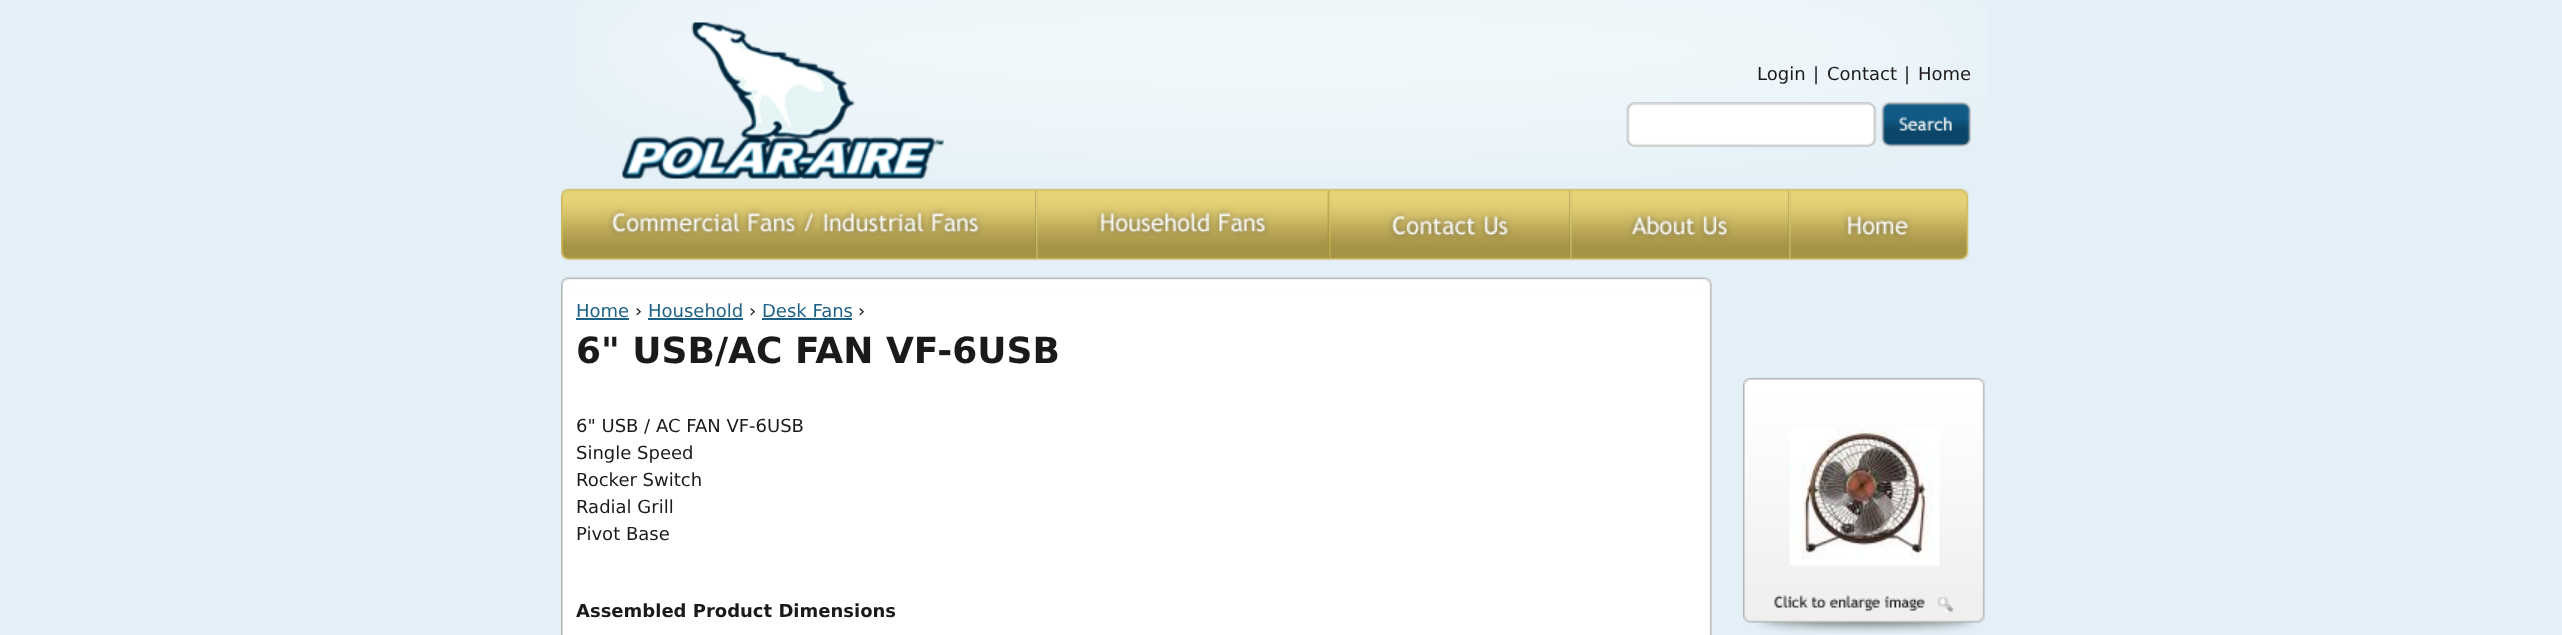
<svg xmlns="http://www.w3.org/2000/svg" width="2562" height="635">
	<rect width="100%" height="100%" fill="#E3F0F7" />
	<image x="575" y="0" width="1413" height="181" href="assets/img1.png" />
	<image x="622" y="22" width="322" height="157" href="assets/img2.png" />
	<g font-family="DejaVu Sans" font-size="18" fill="#1C1919">
		<text x="1757" y="80">Login</text>
		<text x="1813" y="80">|</text>
		<text x="1827" y="80">Contact</text>
		<text x="1904" y="80">|</text>
		<text x="1918" y="80">Home</text>
	</g>
	<image x="1626" y="102" width="251" height="45" href="assets/img3.png" />
	<image x="1881" y="102" width="90" height="45" href="assets/img4.png" />
	<image x="561" y="188" width="476" height="73" href="assets/img5.png" />
	<image x="1036" y="188" width="293" height="73" href="assets/img6.png" />
	<image x="1329" y="188" width="242" height="73" href="assets/img7.png" />
	<image x="1570" y="188" width="220" height="73" href="assets/img8.png" />
	<image x="1789" y="188" width="180" height="73" href="assets/img9.png" />
	<image x="561" y="277" width="1151" height="13" href="assets/img10.png" />
	<image x="561" y="289" width="1151" height="346" href="assets/img11.png" />
	<text x="576" y="317" font-family="DejaVu Sans" font-size="18" fill="#1E6187">Home</text>
	<rect x="576" y="318" width="53" height="2" fill="#1E6187" />
	<text x="635" y="317" font-family="DejaVu Sans" font-size="18" fill="#1C1919">›</text>
	<text x="648" y="317" font-family="DejaVu Sans" font-size="18" fill="#1E6187">Household</text>
	<rect x="648" y="318" width="95" height="2" fill="#1E6187" />
	<text x="749" y="317" font-family="DejaVu Sans" font-size="18" fill="#1C1919">›</text>
	<text x="762" y="317" font-family="DejaVu Sans" font-size="18" fill="#1E6187">Desk Fans</text>
	<rect x="762" y="318" width="90" height="2" fill="#1E6187" />
	<text x="858" y="317" font-family="DejaVu Sans" font-size="18" fill="#1C1919">›</text>
	<text x="576" y="363" font-family="DejaVu Sans" font-size="36" font-weight="700" fill="#1C1919">6" USB/AC FAN VF-6USB</text>
	<g font-family="DejaVu Sans" font-size="18" fill="#1C1919">
		<text x="576" y="432">6" USB / AC FAN VF-6USB</text>
		<text x="576" y="459">Single Speed</text>
		<text x="576" y="486">Rocker Switch</text>
		<text x="576" y="513">Radial Grill</text>
		<text x="576" y="540">Pivot Base</text>
	</g>
	<image x="1743" y="378" width="242" height="256" href="assets/img12.png" />
	<image x="1789" y="429" width="151" height="137" href="assets/img13.png" />
	<text x="576" y="617" font-family="DejaVu Sans" font-size="18" font-weight="700" fill="#1C1919">Assembled Product Dimensions</text>
</svg>
